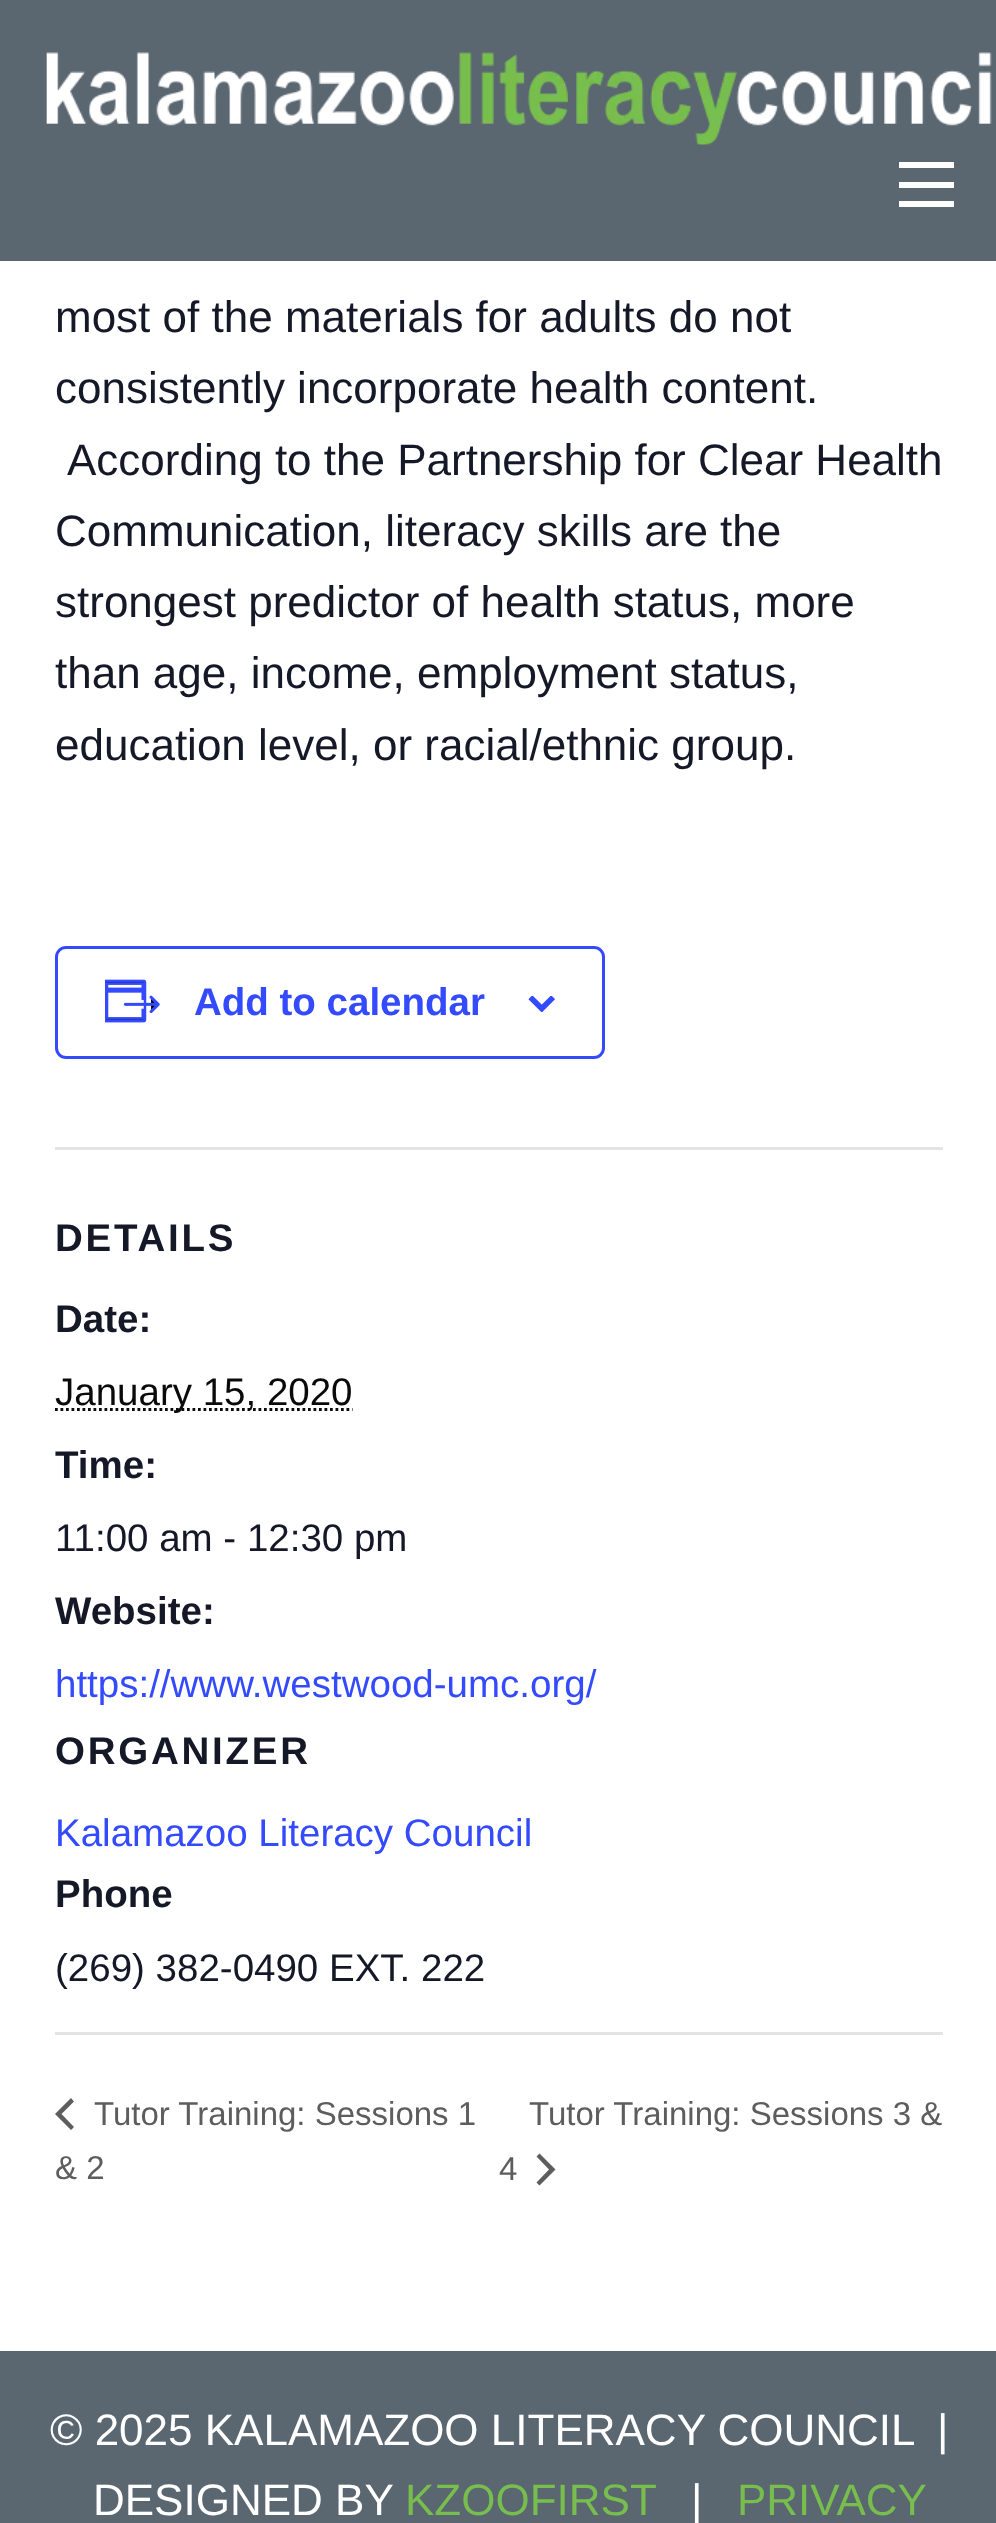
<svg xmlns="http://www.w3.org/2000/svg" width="996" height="2523">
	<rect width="100%" height="100%" fill="#FFFFFF" />
	<rect x="0" y="0" width="996" height="261" fill="#5A6670" />
	<image x="46" y="52" width="946" height="94" href="assets/img1.png" />
	<rect x="899" y="201" width="55" height="6" fill="#FEFEFE" />
	<rect x="899" y="182" width="55" height="6" fill="#FEFEFE" />
	<rect x="899" y="162" width="55" height="6" fill="#FEFEFE" />
	<g font-family="Liberation Sans" font-size="44" fill="#141827">
		<text x="55" y="332">most of the materials for adults do not</text>
		<text x="55" y="403">consistently incorporate health content.</text>
		<text x="67" y="475">According to the Partnership for Clear Health</text>
		<text x="55" y="546">Communication, literacy skills are the</text>
		<text x="55" y="617">strongest predictor of health status, more</text>
		<text x="55" y="688">than age, income, employment status,</text>
		<text x="55" y="760">education level, or racial/ethnic group.</text>
	</g>
	<rect x="56.5" y="947.5" width="547" height="110" rx="9.5" fill="none" stroke="#334AFF" stroke-width="3" />
	<image x="105" y="979" width="55" height="44" href="assets/img2.png" />
	<text x="194" y="1015" font-family="Liberation Sans" font-size="38.5" font-weight="700" fill="#334AFF">Add to calendar</text>
	<image x="528" y="996" width="27" height="16" href="assets/img3.png" />
	<rect x="55" y="1147" width="888" height="3" fill="#E4E4E4" />
	<text x="55" y="1251" font-family="Liberation Sans" font-size="38.5" font-weight="700" letter-spacing="2.75" fill="#141827">DETAILS</text>
	<text x="55" y="1332" font-family="Liberation Sans" font-size="38.5" font-weight="700" fill="#141827">Date:</text>
	<path d="M55 1409.5H352.5" fill="none" stroke="#0A0A0A" stroke-width="2.8" stroke-dasharray="2.75 2.75" />
	<text x="55" y="1405" font-family="Liberation Sans" font-size="38.5" fill="#0A0A0A">January 15, 2020</text>
	<text x="55" y="1478" font-family="Liberation Sans" font-size="38.5" font-weight="700" fill="#141827">Time:</text>
	<text x="55" y="1551" font-family="Liberation Sans" font-size="38.5" fill="#141827">11:00 am - 12:30 pm</text>
	<text x="55" y="1624" font-family="Liberation Sans" font-size="38.5" font-weight="700" fill="#141827">Website:</text>
	<text x="55" y="1697" font-family="Liberation Sans" font-size="38.5" fill="#334AFF">https://www.westwood-umc.org/</text>
	<text x="55" y="1764" font-family="Liberation Sans" font-size="38.5" font-weight="700" letter-spacing="2.75" fill="#141827">ORGANIZER</text>
	<text x="55" y="1846" font-family="Liberation Sans" font-size="38.5" fill="#334AFF">Kalamazoo Literacy Council</text>
	<text x="55" y="1907" font-family="Liberation Sans" font-size="38.5" font-weight="700" fill="#141827">Phone</text>
	<text x="55" y="1981" font-family="Liberation Sans" font-size="38.5" fill="#141827">(269) 382-0490 EXT. 222</text>
	<rect x="55" y="2032" width="888" height="3" fill="#E4E4E4" />
	<path d="M74 2127L71 2130L55 2114L71 2098L74 2101.5L61.5 2114Z" fill="#5D5D5D" />
	<g font-family="Liberation Sans" font-size="33" fill="#5D5D5D">
		<text x="94" y="2125">Tutor Training: Sessions 1</text>
		<text x="55" y="2179">&amp; 2</text>
		<text x="529" y="2125">Tutor Training: Sessions 3 &amp;</text>
		<text x="499" y="2180">4</text>
	</g>
	<path d="M536.5 2156.5L539.5 2153.5L555.5 2169.5L539.5 2185.5L536.5 2182.5L549 2169.5Z" fill="#5D5D5D" />
	<rect x="0" y="2351" width="996" height="172" fill="#5A6670" />
	<g font-family="Liberation Sans" font-size="44" fill="#FFFFFF">
		<text x="50" y="2445">© 2025 KALAMAZOO LITERACY COUNCIL</text>
		<text x="937" y="2445">|</text>
		<text x="93" y="2515">DESIGNED BY</text>
	</g>
	<text x="405" y="2515" font-family="Liberation Sans" font-size="44" fill="#77BE4E">KZOOFIRST</text>
	<text x="691" y="2515" font-family="Liberation Sans" font-size="44" fill="#FFFFFF">|</text>
	<text x="737" y="2515" font-family="Liberation Sans" font-size="44" fill="#77BE4E">PRIVACY</text>
</svg>
